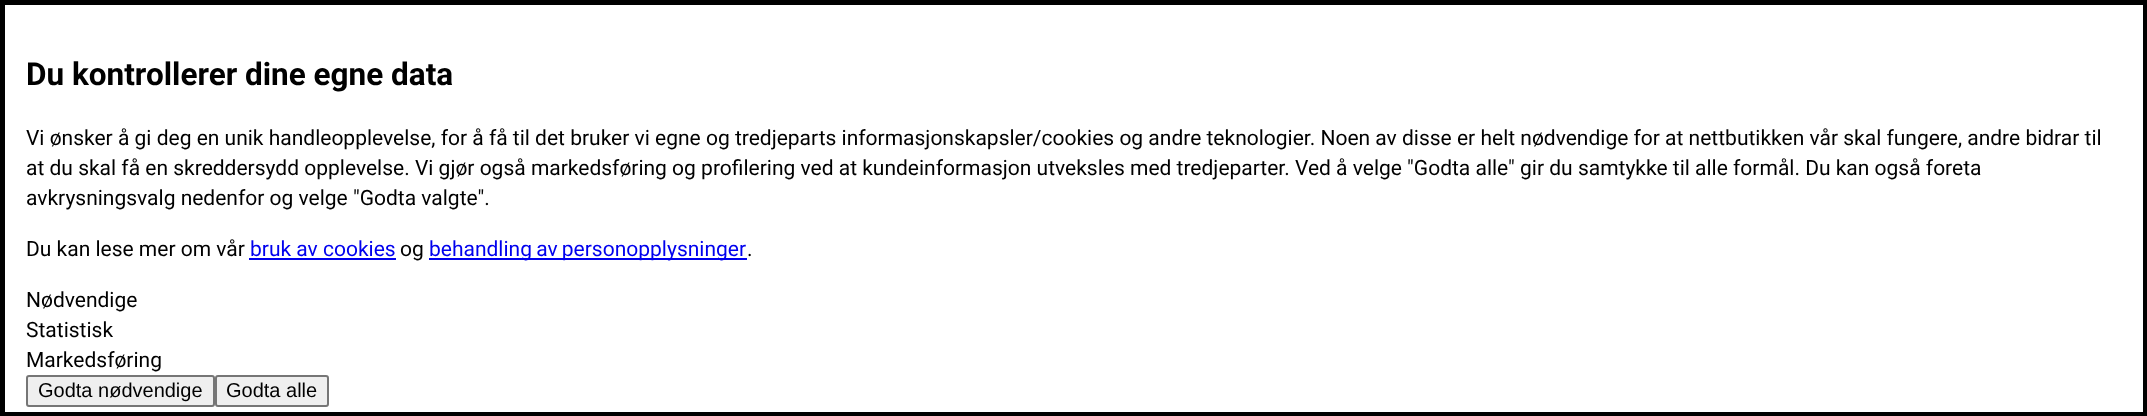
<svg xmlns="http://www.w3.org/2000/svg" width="2147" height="416">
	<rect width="100%" height="100%" fill="#FFFFFF" />
	<rect x="2.5" y="2.5" width="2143" height="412" fill="none" stroke="#000000" stroke-width="5" />
	<text x="26" y="85" font-family="Roboto" font-size="31.5" font-weight="700" fill="#000000">Du kontrollerer dine egne data</text>
	<g font-family="Roboto" font-size="21" fill="#000000">
		<text x="26" y="145">Vi ønsker å gi deg en unik handleopplevelse, for å få til det bruker vi egne og tredjeparts informasjonskapsler/cookies og andre teknologier. Noen av disse er helt nødvendige for at nettbutikken vår skal fungere, andre bidrar til</text>
		<text x="26" y="175">at du skal få en skreddersydd opplevelse. Vi gjør også markedsføring og profilering ved at kundeinformasjon utveksles med tredjeparter. Ved å velge "Godta alle" gir du samtykke til alle formål. Du kan også foreta</text>
		<text x="26" y="205">avkrysningsvalg nedenfor og velge "Godta valgte".</text>
		<text x="26" y="256">Du kan lese mer om vår</text>
	</g>
	<text x="250" y="256" font-family="Roboto" font-size="21" fill="#0000EE">bruk av cookies</text>
	<rect x="249" y="258" width="147" height="2" fill="#0000EE" />
	<text x="400" y="256" font-family="Roboto" font-size="21" fill="#000000">og</text>
	<rect x="429" y="258" width="318" height="2" fill="#0000EE" />
	<text x="429" y="256" word-spacing="-1" font-family="Roboto" font-size="21" fill="#0000EE">behandling av personopplysninger</text>
	<g font-family="Roboto" font-size="21" fill="#000000">
		<text x="747" y="256">.</text>
		<text x="26" y="307">Nødvendige</text>
		<text x="26" y="337">Statistisk</text>
		<text x="26" y="367">Markedsføring</text>
	</g>
	<rect x="27" y="376" width="187" height="30" rx="2" fill="#EFEFEF" stroke="#767676" stroke-width="2" />
	<text x="38" y="397" font-family="Liberation Sans" font-size="20" fill="#000000">Godta nødvendige</text>
	<rect x="216" y="376" width="112" height="30" rx="2" fill="#EFEFEF" stroke="#767676" stroke-width="2" />
	<text x="226" y="397" font-family="Liberation Sans" font-size="20" fill="#000000">Godta alle</text>
</svg>
